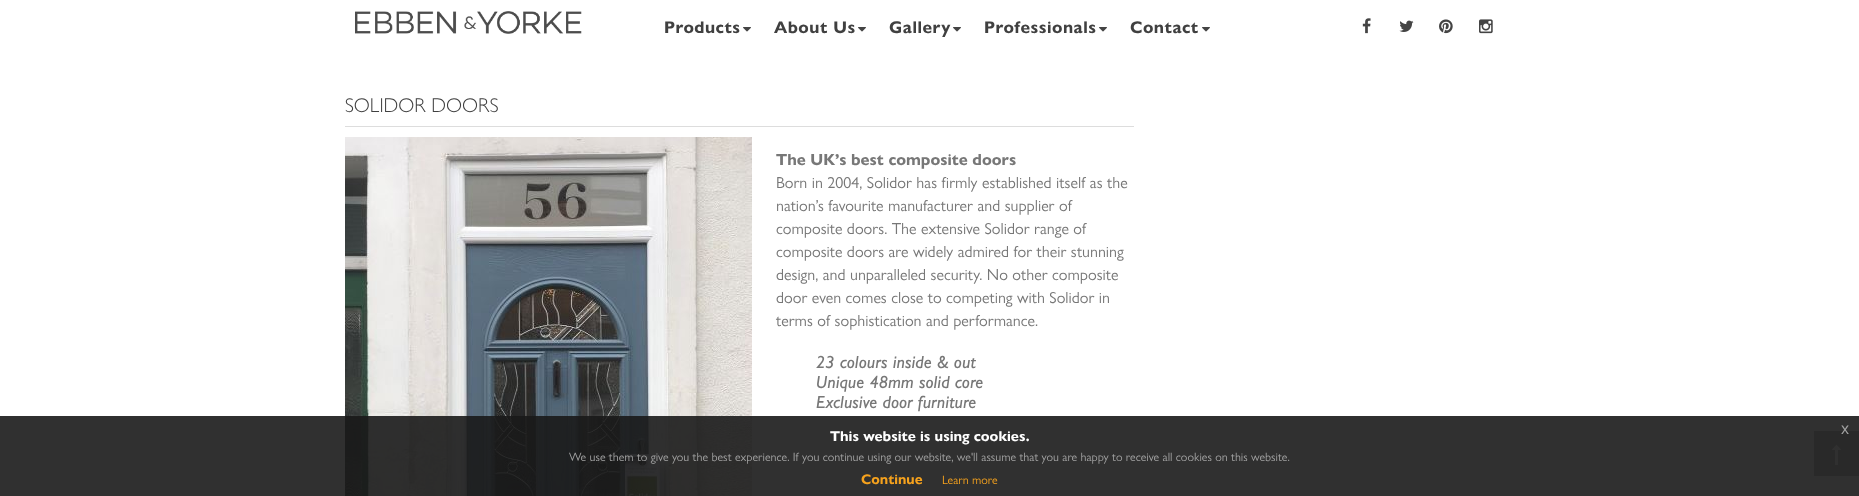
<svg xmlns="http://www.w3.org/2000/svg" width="1859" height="496">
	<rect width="100%" height="100%" fill="#FFFFFF" />
	<image x="355" y="11" width="227" height="23" href="assets/img1.png" />
	<text x="664" y="33" font-family="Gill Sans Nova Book" font-size="17" font-weight="700" letter-spacing="0.5" fill="#404040">Products</text>
	<image x="743" y="27" width="8" height="5" href="assets/img2.png" />
	<text x="774" y="33" font-family="Gill Sans Nova Book" font-size="17" font-weight="700" letter-spacing="0.5" fill="#404040">About Us</text>
	<image x="858" y="27" width="8" height="5" href="assets/img2.png" />
	<text x="889" y="33" font-family="Gill Sans Nova Book" font-size="17" font-weight="700" letter-spacing="0.5" fill="#404040">Gallery</text>
	<image x="953" y="27" width="8" height="5" href="assets/img2.png" />
	<text x="984" y="33" font-family="Gill Sans Nova Book" font-size="17" font-weight="700" letter-spacing="0.5" fill="#404040">Professionals</text>
	<image x="1099" y="27" width="8" height="5" href="assets/img2.png" />
	<text x="1130" y="33" font-family="Gill Sans Nova Book" font-size="17" font-weight="700" letter-spacing="0.5" fill="#404040">Contact</text>
	<image x="1202" y="27" width="8" height="5" href="assets/img2.png" />
	<image x="1362" y="18" width="9" height="16" href="assets/img3.png" />
	<image x="1399" y="20" width="15" height="12" href="assets/img4.png" />
	<image x="1439" y="19" width="14" height="15" href="assets/img5.png" />
	<image x="1479" y="19" width="14" height="15" href="assets/img6.png" />
	<rect x="345" y="126" width="789" height="1" fill="#DDDDDD" />
	<text x="345" y="112" font-family="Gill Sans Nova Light" font-size="20" font-weight="300" fill="#404040">SOLIDOR DOORS</text>
	<image x="345" y="137" width="407" height="359" href="assets/img7.png" />
	<text x="776" y="165" font-family="Gill Sans Nova Book" font-size="16" font-weight="700" fill="#777777">The UK’s best composite doors</text>
	<g font-family="Gill Sans Nova Book" font-size="16" fill="#777777">
		<text x="776" y="188">Born in 2004, Solidor has firmly established itself as the</text>
		<text x="776" y="211">nation’s favourite manufacturer and supplier of</text>
		<text x="776" y="234">composite doors. The extensive Solidor range of</text>
		<text x="776" y="257">composite doors are widely admired for their stunning</text>
		<text x="776" y="280">design, and unparalleled security. No other composite</text>
		<text x="776" y="303">door even comes close to competing with Solidor in</text>
		<text x="776" y="326">terms of sophistication and performance.</text>
	</g>
	<g font-family="Gill Sans Nova Book" font-size="17" font-weight="700" font-style="italic" letter-spacing="0.5" fill="#777777">
		<text x="816" y="368">23 colours inside &amp; out</text>
		<text x="816" y="388">Unique 48mm solid core</text>
		<text x="816" y="408">Exclusive door furniture</text>
	</g>
	<rect x="1814" y="431" width="45" height="45" fill="#B3B3B3" />
	<image x="1832" y="444" width="9" height="21" href="assets/img8.png" />
	<rect x="0" y="416" width="1859" height="80" fill="#191919" fill-opacity="0.9" />
	<text x="1841" y="434" font-family="Liberation Sans" font-size="16" fill="#A2A2A2">x</text>
	<text x="830" y="441" font-family="Gill Sans Nova Book" font-size="14.4" font-weight="700" fill="#FFFFFF">This website is using cookies.</text>
	<text x="569" y="461" font-family="Gill Sans Nova Book" font-size="12" fill="#A2A2A2">We use them to give you the best experience. If you continue using our website, we'll assume that you are happy to receive all cookies on this website.</text>
	<text x="861" y="484" font-family="Gill Sans Nova Book" font-size="14" font-weight="700" fill="#F6A21D">Continue</text>
	<text x="942" y="484" font-family="Gill Sans Nova Book" font-size="12" fill="#F6A21D">Learn more</text>
</svg>
